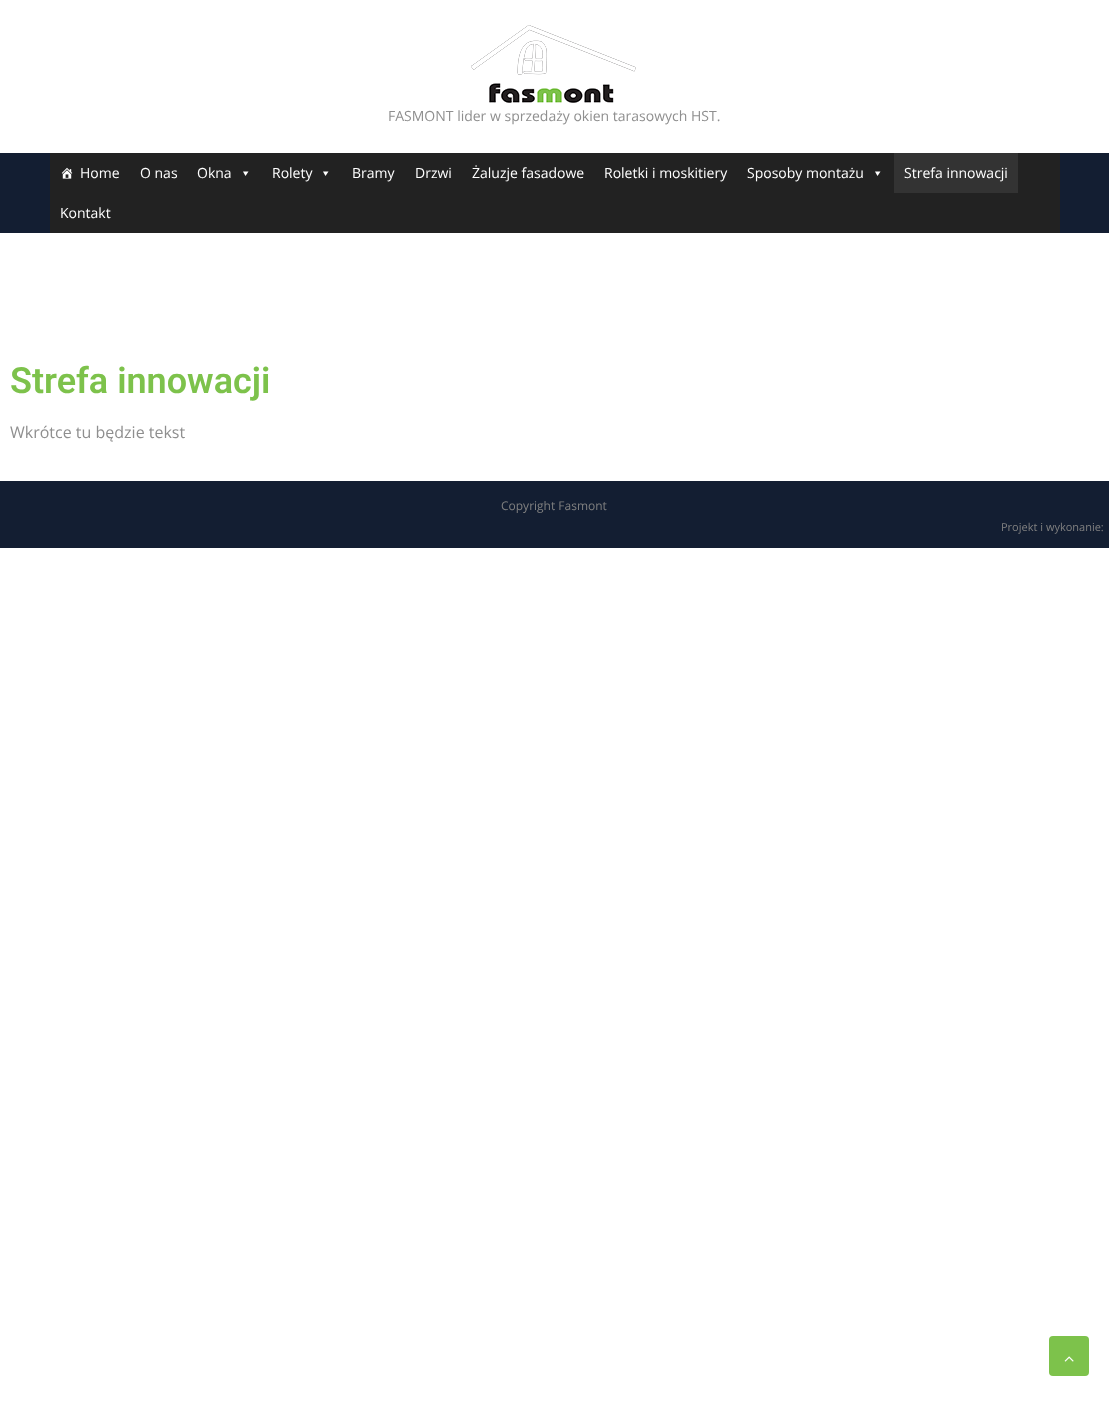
<svg xmlns="http://www.w3.org/2000/svg" width="1109" height="1419">
	<rect width="100%" height="100%" fill="#FFFFFF" />
	<image x="471" y="25" width="165" height="78" href="assets/img1.png" />
	<text x="388" y="121" font-family="Open Sans" font-size="14" fill="#8F8F8F">FASMONT lider w sprzedaży okien tarasowych HST.</text>
	<rect x="0" y="153" width="1109" height="80" fill="#131E32" />
	<rect x="50" y="153" width="1010" height="80" fill="#222222" />
	<image x="61" y="167" width="12" height="12" href="assets/img2.png" />
	<g font-family="Open Sans" font-size="14" fill="#FFFFFF">
		<text x="80" y="178">Home</text>
		<text x="140" y="178">O nas</text>
		<text x="197" y="178">Okna</text>
	</g>
	<path d="M248.5 171.5L245.5 176L243 171.5Z" fill="#FFFFFF" />
	<text x="272" y="178" font-family="Open Sans" font-size="14" fill="#FFFFFF">Rolety</text>
	<path d="M328.5 171.5L325.5 176L323 171.5Z" fill="#FFFFFF" />
	<g font-family="Open Sans" font-size="14" fill="#FFFFFF">
		<text x="352" y="178">Bramy</text>
		<text x="415" y="178">Drzwi</text>
		<text x="472" y="178">Żaluzje fasadowe</text>
		<text x="604" y="178">Roletki i moskitiery</text>
		<text x="747" y="178">Sposoby montażu</text>
	</g>
	<path d="M880.5 171.5L877.5 176L875 171.5Z" fill="#FFFFFF" />
	<rect x="894" y="153" width="124" height="40" fill="#333333" />
	<g font-family="Open Sans" font-size="14" fill="#FFFFFF">
		<text x="904" y="178">Strefa innowacji</text>
		<text x="60" y="218">Kontakt</text>
	</g>
	<text x="10" y="393" font-family="Roboto" font-size="36" font-weight="600" fill="#7DC24B">Strefa innowacji</text>
	<text x="10" y="438" font-family="Open Sans" font-size="16" fill="#8F8F8F">Wkrótce tu będzie tekst</text>
	<rect x="0" y="481" width="1109" height="67" fill="#131E32" />
	<text x="501" y="510" font-family="Open Sans" font-size="12" fill="#808080">Copyright Fasmont</text>
	<text x="1001" y="531" font-family="Open Sans" font-size="11" fill="#808080">Projekt i wykonanie:</text>
	<rect x="1049" y="1336" width="40" height="40" rx="4" fill="#7DC24B" />
	<image x="1064" y="1356" width="10" height="6" href="assets/img3.png" />
</svg>
